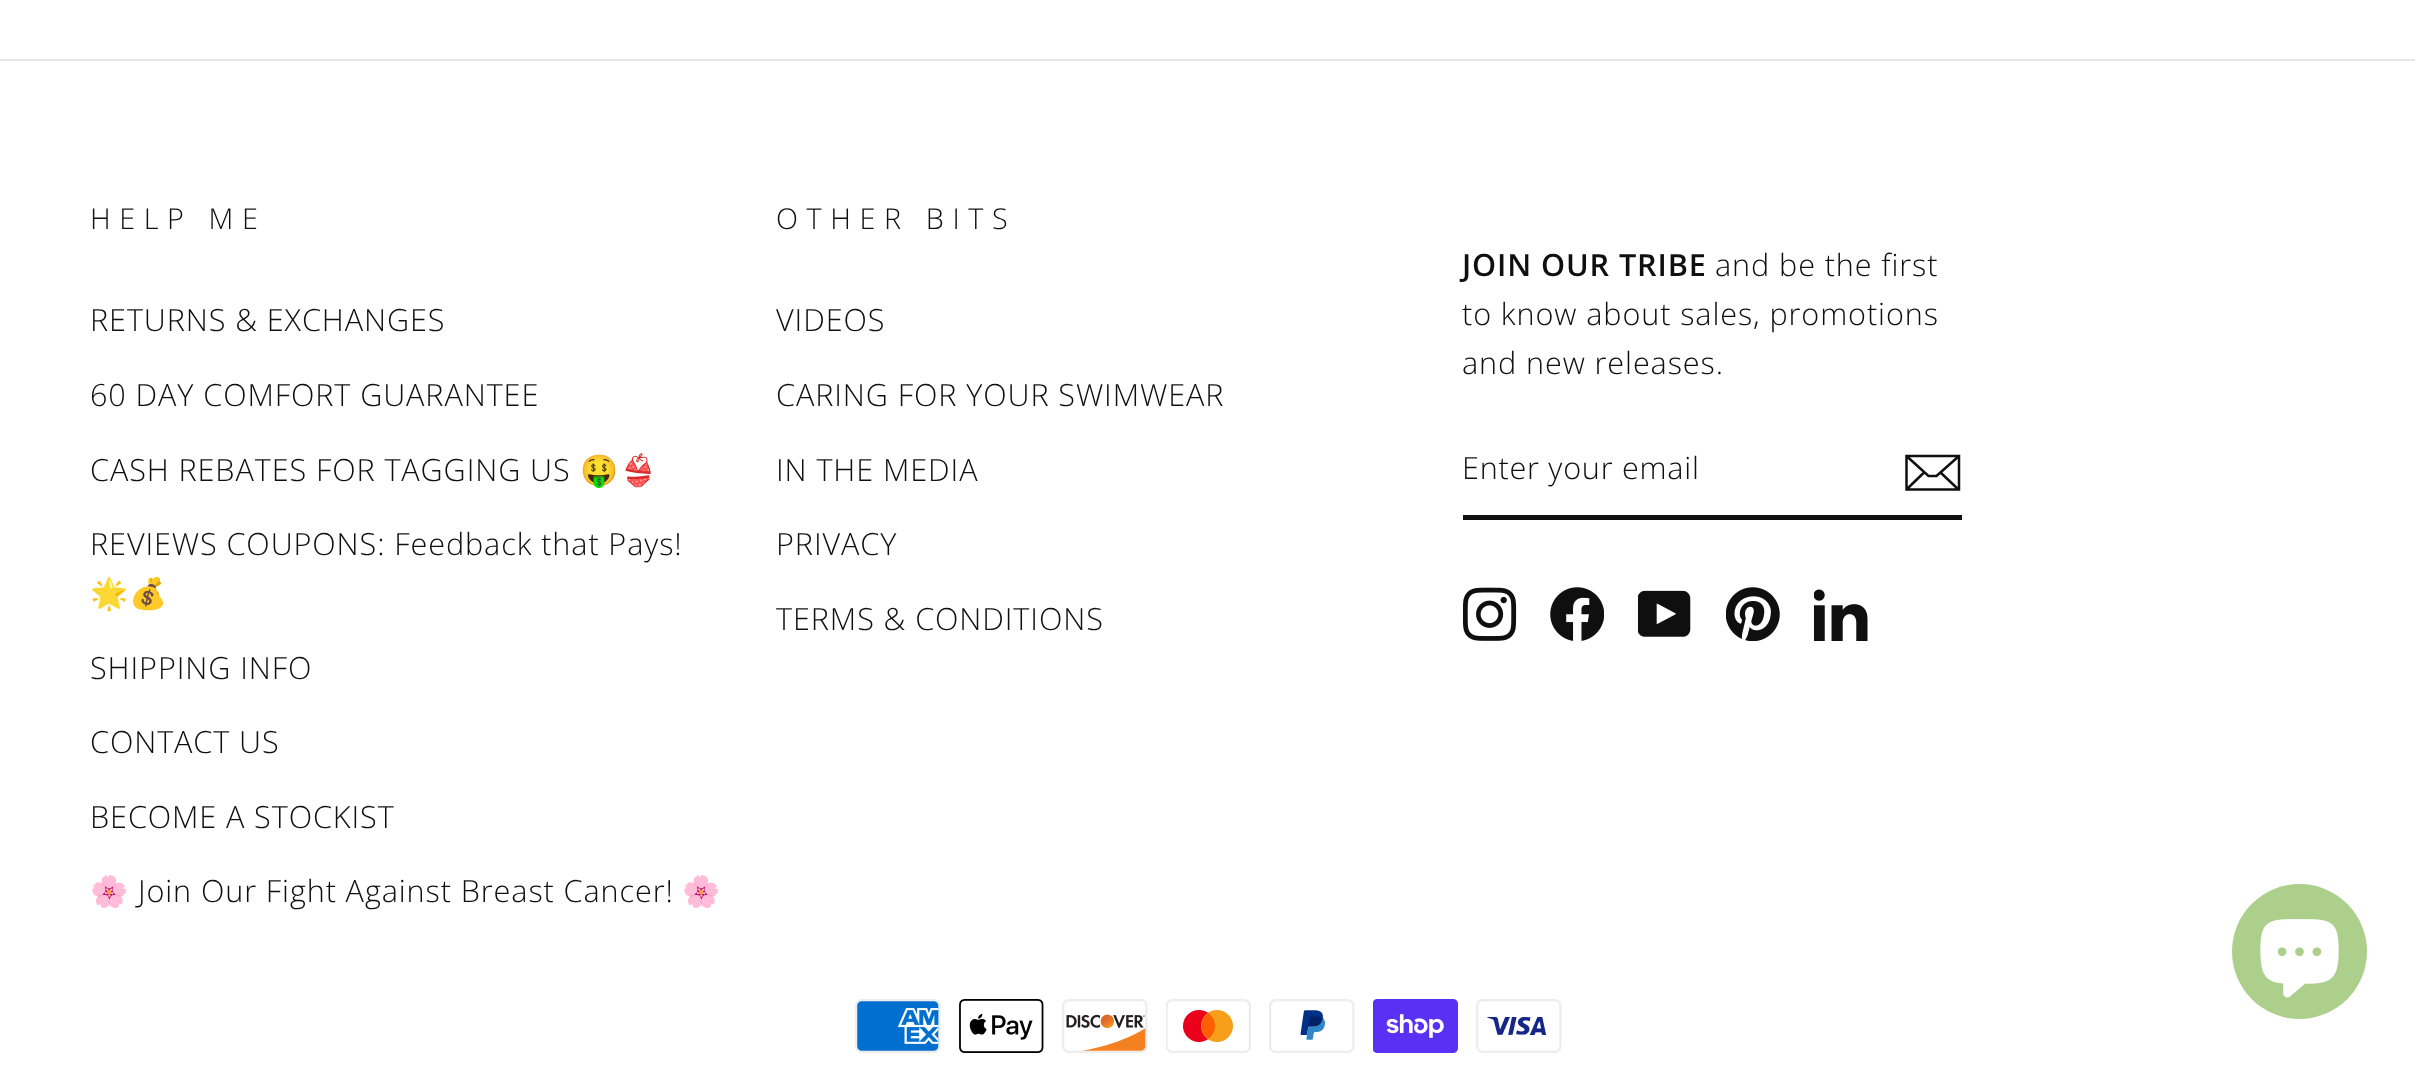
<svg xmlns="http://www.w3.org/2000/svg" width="2415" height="1065">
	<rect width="100%" height="100%" fill="#FFFFFF" />
	<rect x="0" y="59" width="2415" height="2" fill="#E6E6E6" />
	<text x="90" y="229" font-family="Open Sans" font-size="28.75" font-weight="300" letter-spacing="8.6" fill="#0F0F0F">HELP ME</text>
	<g font-family="Open Sans" font-size="30.6" font-weight="300" letter-spacing="0.9" fill="#0F0F0F">
		<text x="90" y="331">RETURNS &amp; EXCHANGES</text>
		<text x="90" y="406">60 DAY COMFORT GUARANTEE</text>
		<text x="90" y="481">CASH REBATES FOR TAGGING US</text>
	</g>
	<text x="580" y="481" font-family="Noto Color Emoji" font-size="30.6" letter-spacing="0.9" fill="#0F0F0F">🤑👙</text>
	<text x="90" y="555" font-family="Open Sans" font-size="30.6" font-weight="300" letter-spacing="0.9" fill="#0F0F0F">REVIEWS COUPONS: Feedback that Pays!</text>
	<text x="90" y="604" font-family="Noto Color Emoji" font-size="30.6" letter-spacing="0.9" fill="#0F0F0F">🌟💰</text>
	<g font-family="Open Sans" font-size="30.6" font-weight="300" letter-spacing="0.9" fill="#0F0F0F">
		<text x="90" y="679">SHIPPING INFO</text>
		<text x="90" y="753">CONTACT US</text>
		<text x="90" y="828">BECOME A STOCKIST</text>
	</g>
	<text x="90" y="902" font-family="Noto Color Emoji" font-size="30.6" letter-spacing="0.9" fill="#0F0F0F">🌸</text>
	<text x="138" y="902" font-family="Open Sans" font-size="30.6" font-weight="300" letter-spacing="0.9" fill="#0F0F0F">Join Our Fight Against Breast Cancer!</text>
	<text x="682" y="902" font-family="Noto Color Emoji" font-size="30.6" letter-spacing="0.9" fill="#0F0F0F">🌸</text>
	<text x="776" y="229" font-family="Open Sans" font-size="28.75" font-weight="300" letter-spacing="8.6" fill="#0F0F0F">OTHER BITS</text>
	<g font-family="Open Sans" font-size="30.6" font-weight="300" letter-spacing="0.9" fill="#0F0F0F">
		<text x="776" y="331">VIDEOS</text>
		<text x="776" y="406">CARING FOR YOUR SWIMWEAR</text>
		<text x="776" y="481">IN THE MEDIA</text>
		<text x="776" y="555">PRIVACY</text>
		<text x="776" y="630">TERMS &amp; CONDITIONS</text>
	</g>
	<text x="1462" y="276" font-family="Open Sans" font-size="30.6" font-weight="600" letter-spacing="0.9" fill="#0F0F0F">JOIN OUR TRIBE</text>
	<g font-family="Open Sans" font-size="30.6" font-weight="300" letter-spacing="0.9" fill="#0F0F0F">
		<text x="1715" y="276">and be the first</text>
		<text x="1462" y="325">to know about sales, promotions</text>
		<text x="1462" y="374">and new releases.</text>
	</g>
	<rect x="1463" y="515" width="499" height="5" fill="#0F0F0F" />
	<text x="1462" y="479" font-family="Open Sans" font-size="30.6" font-weight="300" letter-spacing="0.75" fill="#0F0F0F">Enter your email</text>
	<path d="M1959 489.5H1906.5V456H1959ZM1906.5 456L1928.5 476H1936.5L1959 456M1924 472.5L1907 489M1958.5 489.5L1940.5 472.5" fill="none" stroke="#0F0F0F" stroke-width="2.5" />
	<image x="1463" y="587" width="54" height="54" href="assets/img1.png" />
	<image x="1550" y="587" width="54" height="54" href="assets/img2.png" />
	<image x="1638" y="590" width="53" height="47" href="assets/img3.png" />
	<image x="1726" y="587" width="54" height="54" href="assets/img4.png" />
	<image x="1814" y="589" width="54" height="52" href="assets/img5.png" />
	<image x="855" y="999" width="86" height="54" href="assets/img6.png" />
	<image x="959" y="999" width="85" height="54" href="assets/img7.png" />
	<image x="1062" y="999" width="86" height="54" href="assets/img8.png" />
	<image x="1166" y="999" width="85" height="54" href="assets/img9.png" />
	<image x="1269" y="999" width="86" height="54" href="assets/img10.png" />
	<image x="1373" y="999" width="85" height="54" href="assets/img11.png" />
	<image x="1476" y="999" width="86" height="54" href="assets/img12.png" />
	<circle cx="2299.5" cy="951.5" r="67.5" fill="#ACD08C" />
	<image x="2260" y="919" width="79" height="79" href="assets/img13.png" />
</svg>
